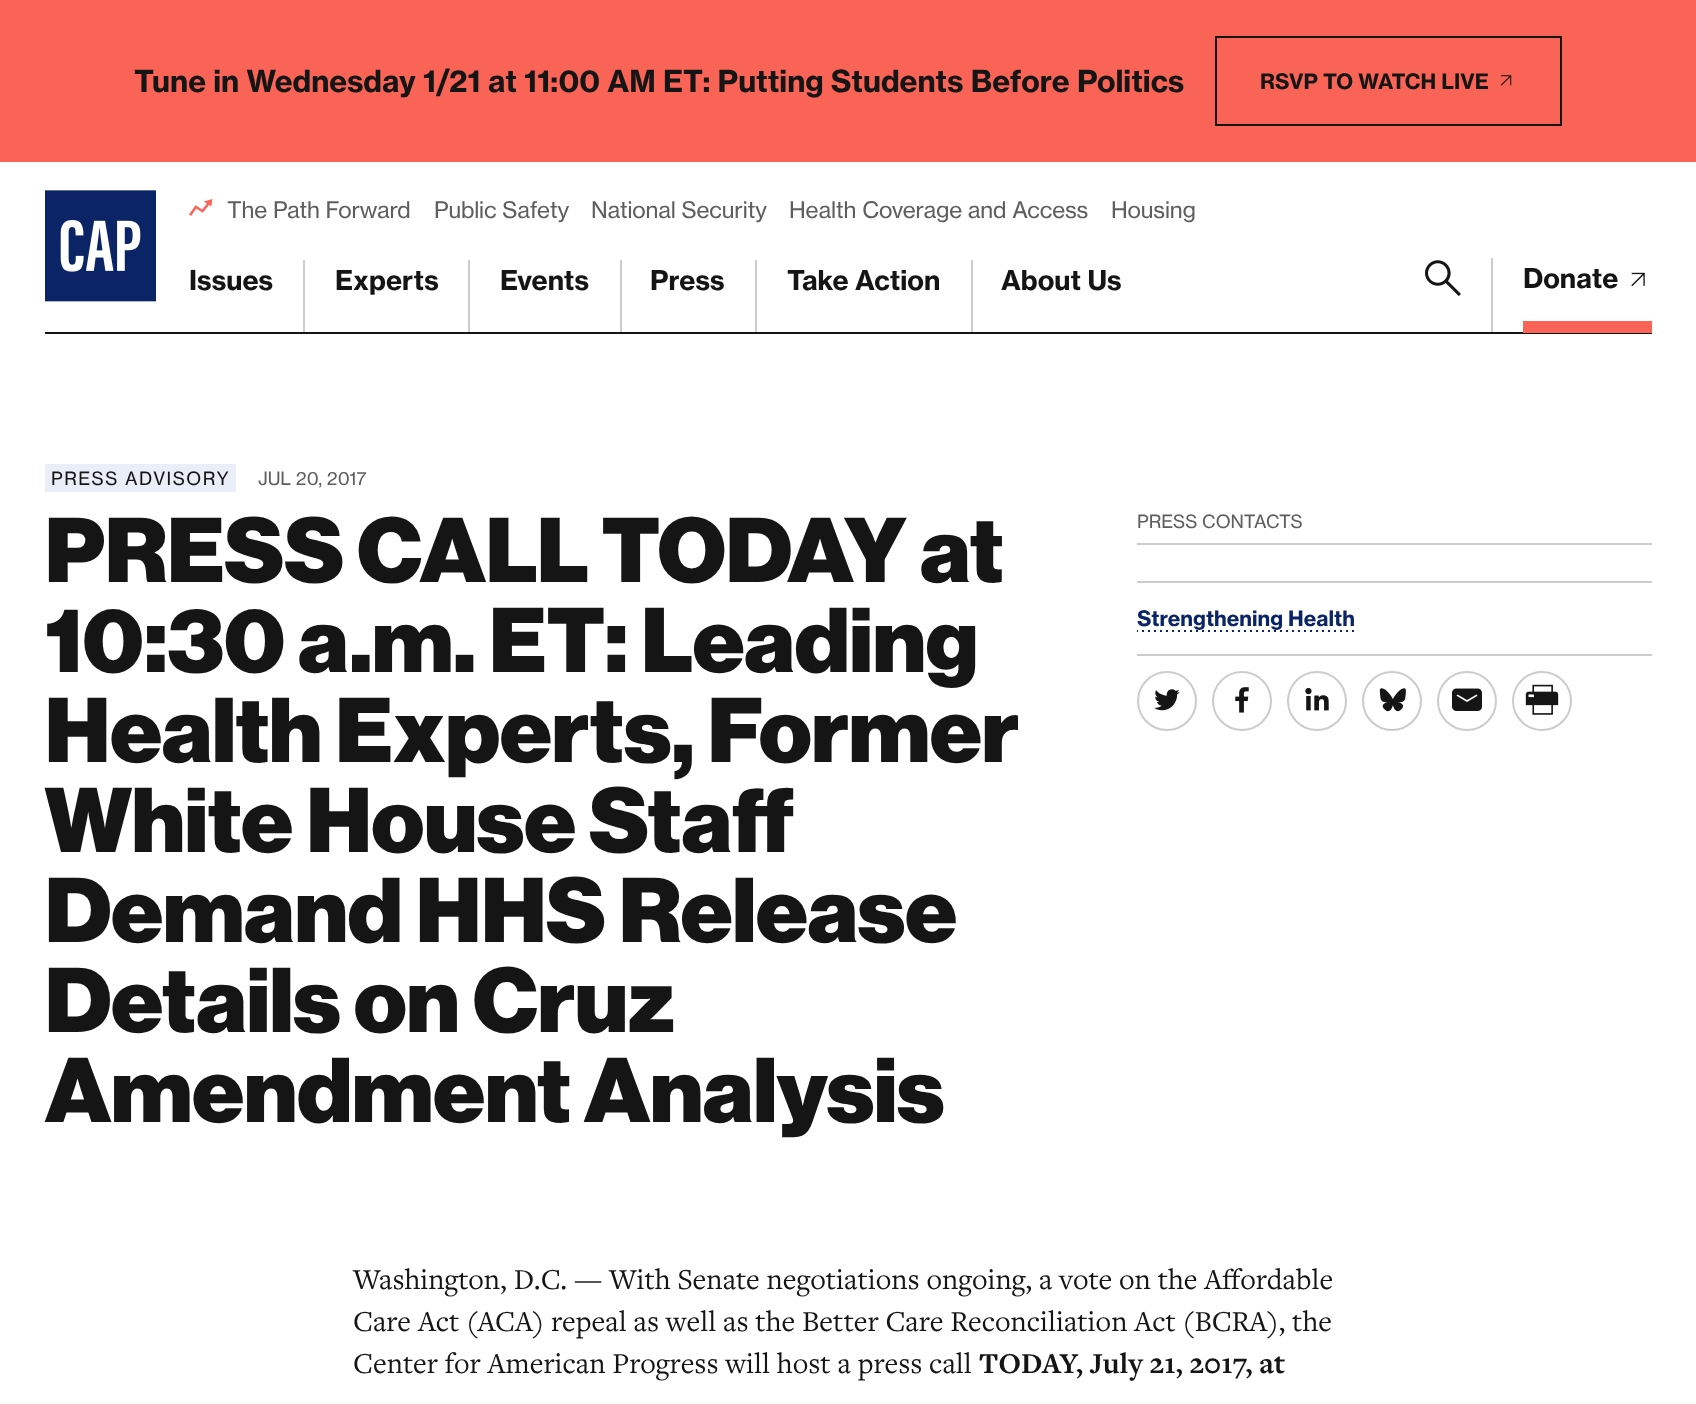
<svg xmlns="http://www.w3.org/2000/svg" width="1696" height="1404">
	<rect width="100%" height="100%" fill="#FFFFFF" />
	<rect x="1491" y="258" width="2" height="75" fill="#CCCCCC" />
	<rect x="971" y="260" width="2" height="73" fill="#CCCCCC" />
	<rect x="755" y="260" width="2" height="73" fill="#CCCCCC" />
	<rect x="620" y="260" width="2" height="73" fill="#CCCCCC" />
	<rect x="468" y="260" width="2" height="73" fill="#CCCCCC" />
	<rect x="303" y="260" width="2" height="73" fill="#CCCCCC" />
	<rect x="0" y="0" width="1696" height="162" fill="#FA6457" />
	<text x="134" y="92" font-family="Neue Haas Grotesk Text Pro" font-size="30" font-weight="700" fill="#151515">Tune in Wednesday 1/21 at 11:00 AM ET: Putting Students Before Politics</text>
	<rect x="1216" y="37" width="345" height="88" fill="none" stroke="#151515" stroke-width="2" />
	<text x="1260" y="89" font-family="Neue Haas Grotesk Text Pro" font-size="21" font-weight="700" fill="#151515">RSVP TO WATCH LIVE</text>
	<image x="1500" y="75" width="12" height="11" href="assets/img1.png" />
	<rect x="45" y="332" width="1607" height="2" fill="#151515" />
	<rect x="1491" y="332" width="2" height="1" fill="#111111" />
	<rect x="971" y="332" width="2" height="1" fill="#111111" />
	<rect x="755" y="332" width="2" height="1" fill="#111111" />
	<rect x="620" y="332" width="2" height="1" fill="#111111" />
	<rect x="468" y="332" width="2" height="1" fill="#111111" />
	<rect x="303" y="332" width="2" height="1" fill="#111111" />
	<image x="45" y="190" width="111" height="112" href="assets/img2.png" />
	<image x="189" y="199" width="24" height="17" href="assets/img3.png" />
	<g font-family="Neue Haas Grotesk Text Pro" font-size="22.5" letter-spacing="-0.15" fill="#5E5E5E">
		<text x="227" y="218">The Path Forward</text>
		<text x="434" y="218">Public Safety</text>
		<text x="591" y="218">National Security</text>
		<text x="789" y="218">Health Coverage and Access</text>
		<text x="1111" y="218">Housing</text>
	</g>
	<g font-family="Neue Haas Grotesk Text Pro" font-size="27" font-weight="700" fill="#151515">
		<text x="189" y="290">Issues</text>
		<text x="335" y="290">Experts</text>
		<text x="500" y="290">Events</text>
		<text x="650" y="290">Press</text>
		<text x="787" y="290">Take Action</text>
		<text x="1001" y="290">About Us</text>
	</g>
	<image x="1425" y="260" width="36" height="36" href="assets/img4.png" />
	<text x="1523" y="288" font-family="Neue Haas Grotesk Text Pro" font-size="27" font-weight="700" fill="#151515">Donate</text>
	<image x="1631" y="272" width="14" height="15" href="assets/img5.png" />
	<rect x="1523" y="321" width="129" height="12" fill="#FA6457" />
	<rect x="45" y="464" width="191" height="28" fill="#EAEEF8" />
	<text x="51" y="485" font-family="Neue Haas Grotesk Text Pro" font-size="18" letter-spacing="1.5" fill="#151515">PRESS ADVISORY</text>
	<text x="258" y="485" font-family="Neue Haas Grotesk Text Pro" font-size="18" fill="#5E5E5E">JUL 20, 2017</text>
	<g font-family="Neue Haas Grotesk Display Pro" font-size="90" font-weight="900" fill="#151515">
		<text x="45" y="582">PRESS CALL TODAY at</text>
		<text x="45" y="672">10:30 a.m. ET: Leading</text>
		<text x="45" y="762">Health Experts, Former</text>
		<text x="45" y="852">White House Staff</text>
		<text x="45" y="942">Demand HHS Release</text>
		<text x="45" y="1032">Details on Cruz</text>
		<text x="45" y="1122">Amendment Analysis</text>
	</g>
	<rect x="1137" y="543" width="515" height="2" fill="#CCCCCC" />
	<text x="1137" y="528" font-family="Neue Haas Grotesk Text Pro" font-size="18" fill="#5E5E5E">PRESS CONTACTS</text>
	<rect x="1137" y="581" width="515" height="2" fill="#CCCCCC" />
	<text x="1137" y="626" font-family="Neue Haas Grotesk Text Pro" font-size="21" font-weight="700" fill="#0B2466">Strengthening Health</text>
	<image x="1137" y="630" width="217" height="2" href="assets/img6.png" />
	<rect x="1137" y="654" width="515" height="2" fill="#CCCCCC" />
	<circle cx="1167" cy="701" r="29" fill="none" stroke="#CCCCCC" stroke-width="2" />
	<image x="1154" y="689" width="26" height="22" href="assets/img7.png" />
	<circle cx="1242" cy="701" r="29" fill="none" stroke="#CCCCCC" stroke-width="2" />
	<image x="1235" y="687" width="14" height="26" href="assets/img8.png" />
	<circle cx="1317" cy="701" r="29" fill="none" stroke="#CCCCCC" stroke-width="2" />
	<image x="1305" y="687" width="24" height="24" href="assets/img9.png" />
	<circle cx="1392" cy="701" r="29" fill="none" stroke="#CCCCCC" stroke-width="2" />
	<image x="1379" y="688" width="27" height="24" href="assets/img10.png" />
	<circle cx="1467" cy="701" r="29" fill="none" stroke="#CCCCCC" stroke-width="2" />
	<image x="1452" y="688" width="30" height="23" href="assets/img11.png" />
	<circle cx="1542" cy="701" r="29" fill="none" stroke="#CCCCCC" stroke-width="2" />
	<image x="1525" y="684" width="34" height="31" href="assets/img12.png" />
	<g font-family="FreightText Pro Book" font-size="30" fill="#151515">
		<text x="353" y="1289">Washington, D.C. — With Senate negotiations ongoing, a vote on the Affordable</text>
		<text x="353" y="1331">Care Act (ACA) repeal as well as the Better Care Reconciliation Act (BCRA), the</text>
		<text x="353" y="1373">Center for American Progress will host a press call</text>
	</g>
	<g font-family="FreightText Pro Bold" font-size="30" font-weight="700" fill="#151515">
		<text x="979" y="1373">TODAY</text>
		<text x="1076" y="1373">, July 21, 2017, at</text>
	</g>
</svg>
